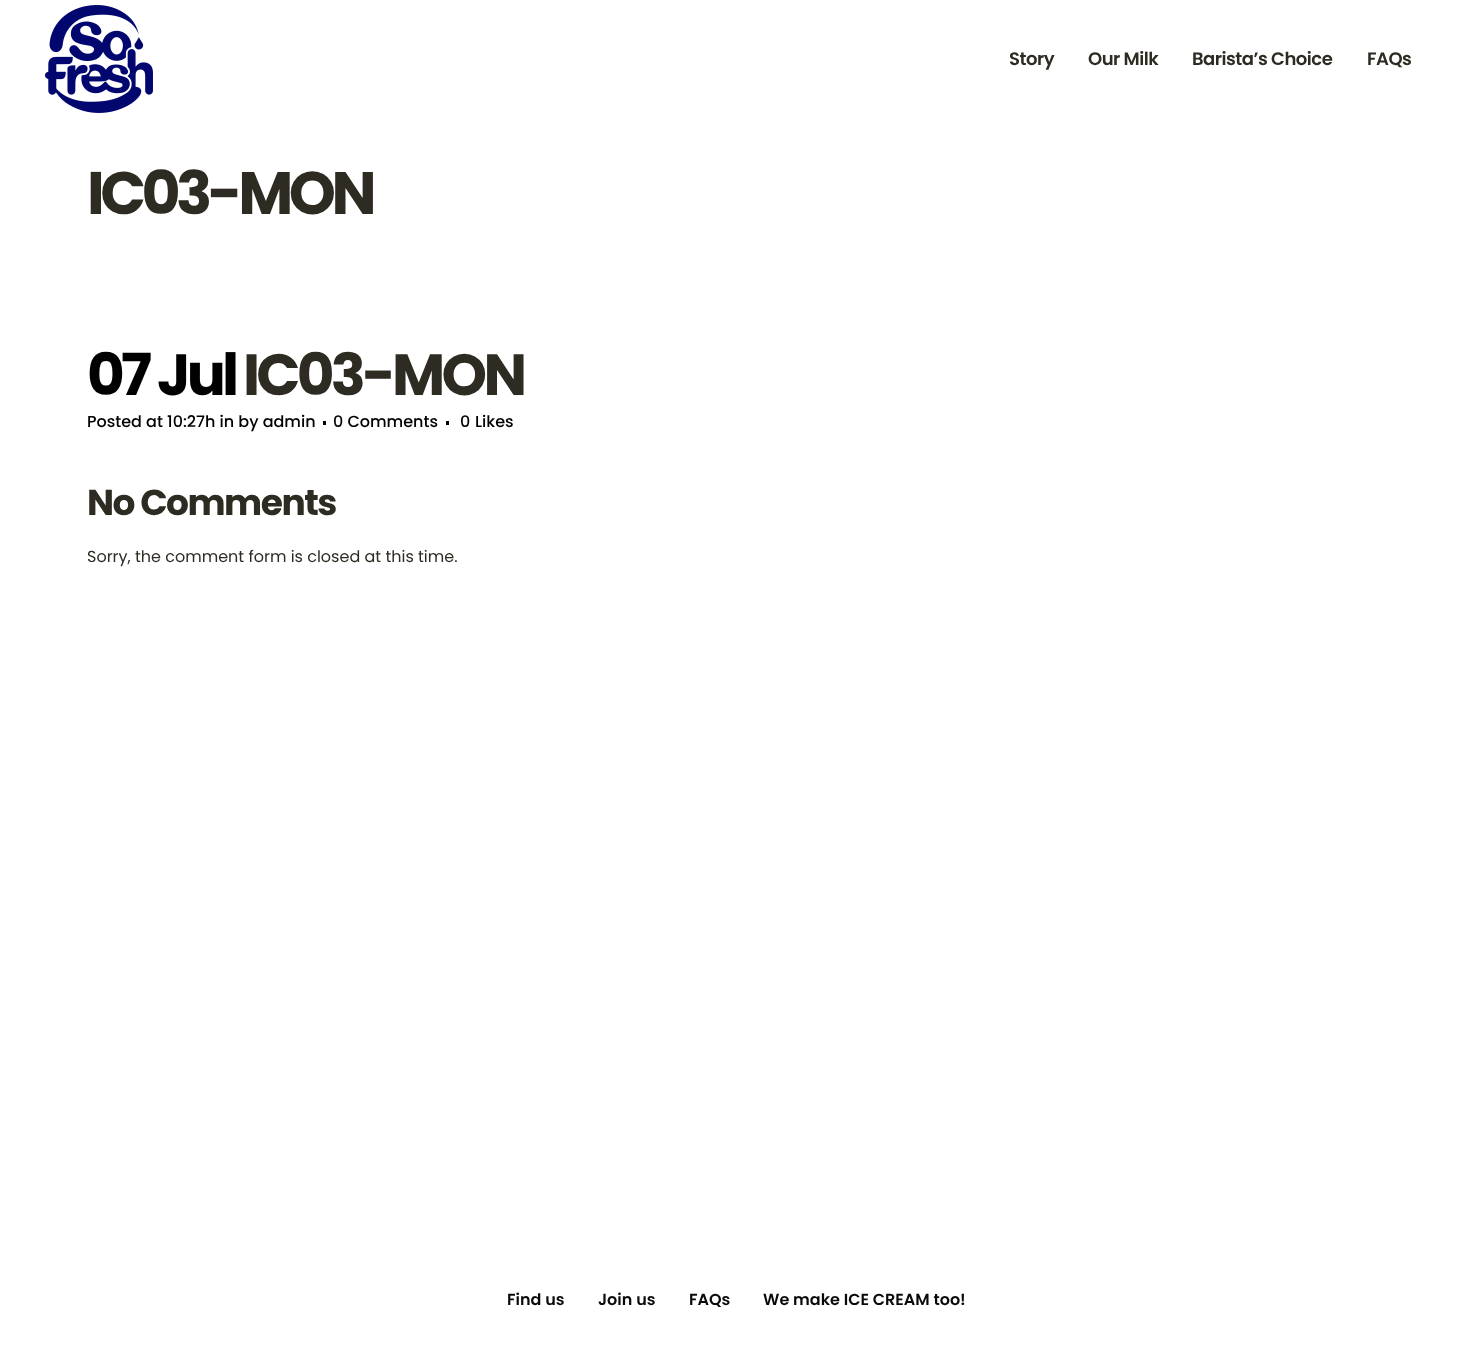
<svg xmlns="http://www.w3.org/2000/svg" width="1473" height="1362">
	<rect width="100%" height="100%" fill="#FFFFFF" />
	<image x="45" y="5" width="108" height="108" href="assets/img1.png" />
	<g font-family="Poppins" font-size="18" font-weight="600" letter-spacing="-0.5" fill="#2E2B22">
		<text x="1009" y="65">Story</text>
		<text x="1088" y="65">Our Milk</text>
		<text x="1192" y="65">Barista’s Choice</text>
		<text x="1367" y="65">FAQs</text>
	</g>
	<text x="87" y="214" font-family="Poppins" font-size="60" font-weight="700" letter-spacing="-4.5" fill="#2E2B22">IC03-MON</text>
	<text x="87" y="395" font-family="Poppins" font-size="58" font-weight="700" letter-spacing="-3.75" fill="#000000">07 Jul</text>
	<text x="243" y="395" font-family="Poppins" font-size="58" font-weight="700" letter-spacing="-3.75" fill="#2E2B22">IC03-MON</text>
	<text x="87" y="427" font-family="Poppins" font-size="16" font-weight="500" fill="#000000">Posted at 10:27h in by admin</text>
	<rect x="323" y="421" width="3" height="4" fill="#000000" />
	<text x="333" y="427" font-family="Poppins" font-size="16" font-weight="500" fill="#000000">0 Comments</text>
	<rect x="446" y="421" width="3" height="4" fill="#000000" />
	<g font-family="Poppins" font-size="16" font-weight="500" fill="#000000">
		<text x="460" y="427">0</text>
		<text x="475" y="427">Likes</text>
	</g>
	<text x="87" y="515" font-family="Poppins" font-size="36" font-weight="700" letter-spacing="-1.5" fill="#2E2B22">No Comments</text>
	<text x="87" y="562" font-family="Poppins" font-size="16" fill="#2E2B22">Sorry, the comment form is closed at this time.</text>
	<g font-family="Poppins" font-size="16" font-weight="600" fill="#0A0A0A">
		<text x="507" y="1305">Find us</text>
		<text x="598" y="1305">Join us</text>
		<text x="689" y="1305">FAQs</text>
		<text x="763" y="1305">We make ICE CREAM too!</text>
	</g>
</svg>
